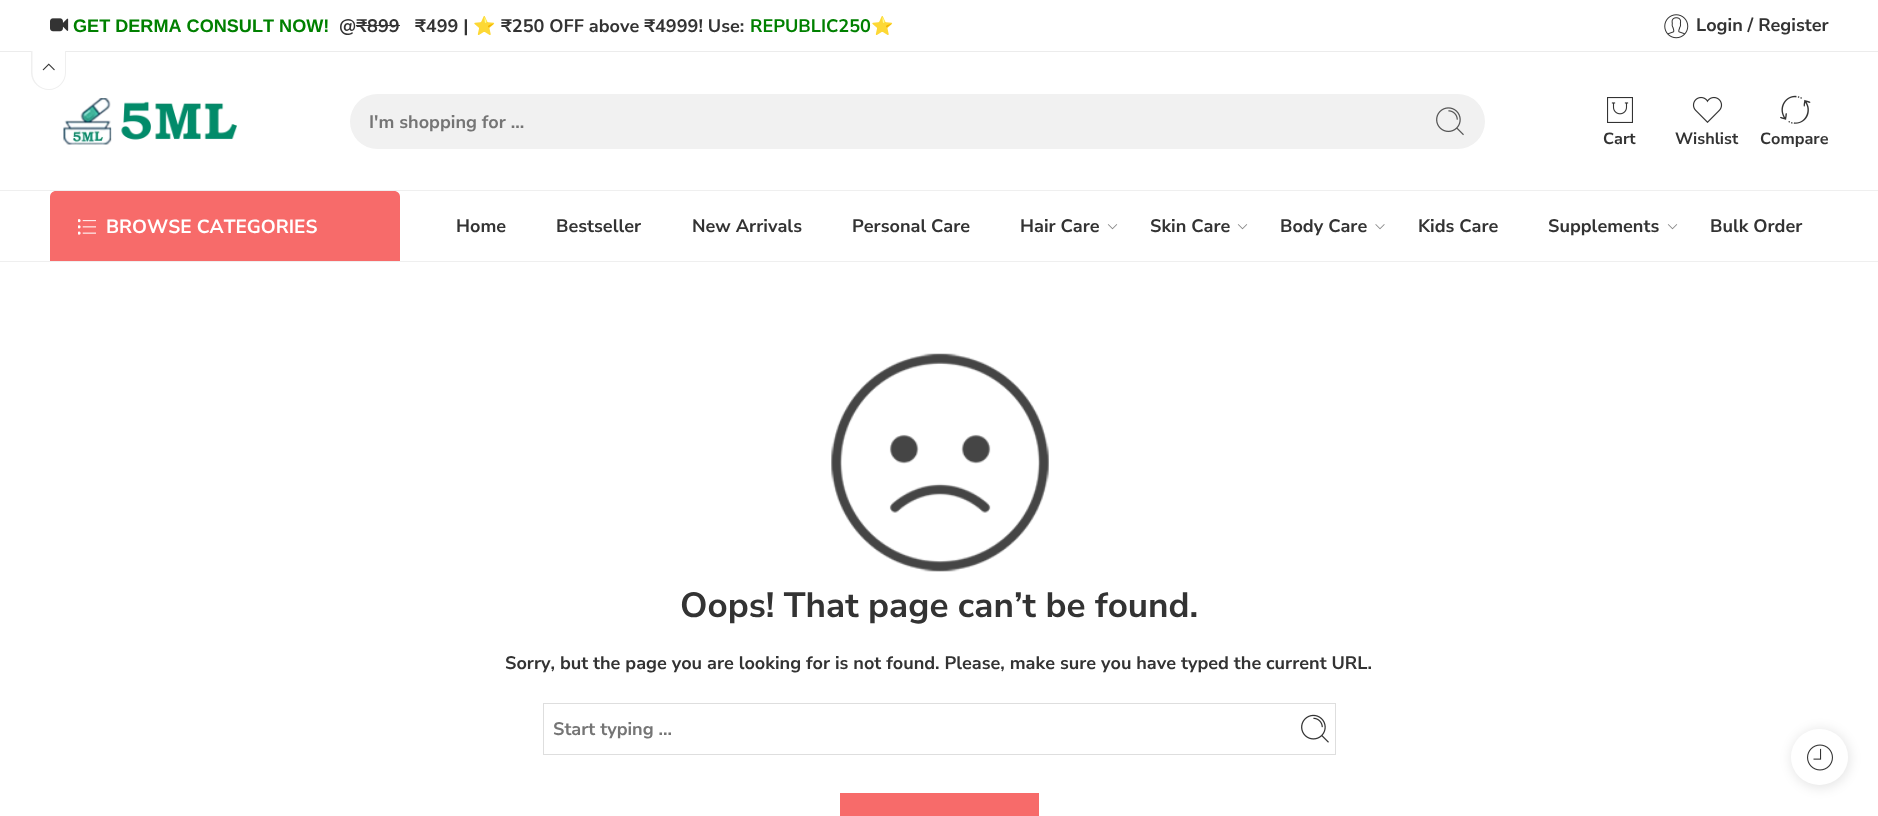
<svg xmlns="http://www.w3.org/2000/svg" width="1878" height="816">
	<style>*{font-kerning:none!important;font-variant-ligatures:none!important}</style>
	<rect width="100%" height="100%" fill="#FFFFFF" />
	<rect x="0" y="51" width="1878" height="1" fill="#ECECEC" />
	<image x="50" y="18" width="19" height="14" href="assets/img1.png" />
	<text x="73" y="32" font-family="Liberation Sans" font-size="18.1" font-weight="700" fill="#008000">GET DERMA CONSULT NOW!</text>
	<text x="339" y="32" font-family="Nunito Sans" font-size="18.1" font-weight="700" fill="#333333">@₹899</text>
	<rect x="356" y="25" width="44" height="1" fill="#333333" />
	<text x="415" y="32" font-family="Nunito Sans" font-size="18.1" font-weight="700" fill="#333333">₹499 |</text>
	<text x="473" y="32" font-family="Noto Color Emoji" font-size="18.1" font-weight="700" fill="#333333">⭐</text>
	<text x="501" y="32" font-family="Nunito Sans" font-size="18.1" font-weight="700" fill="#333333">₹250 OFF above ₹4999! Use:</text>
	<text x="750" y="32" font-family="Nunito Sans" font-size="18.1" font-weight="700" fill="#008000">REPUBLIC250</text>
	<text x="871" y="32" font-family="'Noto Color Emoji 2'" font-size="18.1" font-weight="700" fill="#008000">⭐</text>
	<image x="1664" y="14" width="25" height="25" href="assets/img2.png" />
	<text x="1696" y="31" font-family="Nunito Sans" font-size="18.1" font-weight="700" fill="#333333">Login / Register</text>
	<path d="M31 51H66V72.5C66 82 58 90 48.5 90C39 90 31 82 31 72.5Z" fill="#FFFFFF" />
	<path d="M31 51H66V72.5C66 82 58.5 90 49 90C39 90 31 82 31 72.5ZM32.5 51H65V72.5C65 81.5 57.5 89 49 89C40 89 32.5 81.5 32.5 72.5Z" fill="#EFEFEF" fill-rule="evenodd" />
	<image x="42" y="63" width="13" height="8" href="assets/img3.png" />
	<image x="63" y="98" width="174" height="47" href="assets/img4.png" />
	<rect x="350" y="94" width="1135" height="55" rx="27.5" fill="#F1F1F1" />
	<text x="369" y="128" font-family="Nunito Sans" font-size="18.1" font-weight="700" fill="#757575">I'm shopping for ...</text>
	<image x="1436" y="107" width="28" height="29" href="assets/img5.png" />
	<image x="1607" y="97" width="26" height="26" href="assets/img6.png" />
	<text x="1603" y="144" font-family="Nunito Sans" font-size="16.25" font-weight="700" fill="#333333">Cart</text>
	<image x="1692" y="96" width="31" height="27" href="assets/img7.png" />
	<text x="1675" y="144" font-family="Nunito Sans" font-size="16.25" font-weight="700" fill="#333333">Wishlist</text>
	<image x="1780" y="95" width="31" height="29" href="assets/img8.png" />
	<text x="1760" y="144" font-family="Nunito Sans" font-size="16.25" font-weight="700" fill="#333333">Compare</text>
	<rect x="0" y="190" width="1878" height="1" fill="#EFEFEF" />
	<rect x="0" y="261" width="1878" height="1" fill="#EFEFEF" />
	<path d="M56 191H394C397.5 191 400 193.5 400 197V261H50V197C50 193.5 52.5 191 56 191Z" fill="#F76B6A" />
	<image x="78" y="219" width="18" height="16" href="assets/img9.png" />
	<text x="106" y="233" font-family="Nunito Sans" font-size="19" font-weight="700" fill="#FFFFFF">BROWSE CATEGORIES</text>
	<g font-family="Nunito Sans" font-size="18.1" font-weight="700" fill="#333333">
		<text x="456" y="232">Home</text>
		<text x="556" y="232">Bestseller</text>
		<text x="692" y="232">New Arrivals</text>
		<text x="852" y="232">Personal Care</text>
		<text x="1020" y="232">Hair Care</text>
	</g>
	<image x="1107" y="224" width="11" height="6" href="assets/img10.png" />
	<text x="1150" y="232" font-family="Nunito Sans" font-size="18.1" font-weight="700" fill="#333333">Skin Care</text>
	<image x="1237" y="224" width="11" height="6" href="assets/img10.png" />
	<text x="1280" y="232" font-family="Nunito Sans" font-size="18.1" font-weight="700" fill="#333333">Body Care</text>
	<image x="1375" y="224" width="10" height="6" href="assets/img11.png" />
	<g font-family="Nunito Sans" font-size="18.1" font-weight="700" fill="#333333">
		<text x="1418" y="232">Kids Care</text>
		<text x="1548" y="232">Supplements</text>
	</g>
	<image x="1667" y="224" width="11" height="6" href="assets/img10.png" />
	<text x="1710" y="232" font-family="Nunito Sans" font-size="18.1" font-weight="700" fill="#333333">Bulk Order</text>
	<image x="831" y="353" width="218" height="219" href="assets/img12.png" />
	<text x="680" y="617" font-family="Nunito Sans" font-size="35" font-weight="700" fill="#333333">Oops! That page can’t be found.</text>
	<text x="505" y="669" font-family="Nunito Sans" font-size="18.1" font-weight="700" fill="#333333">Sorry, but the page you are looking for is not found. Please, make sure you have typed the current URL.</text>
	<rect x="543.5" y="703.5" width="792" height="51" fill="none" stroke="#DEDEDE" />
	<text x="553" y="735" font-family="Nunito Sans" font-size="18.1" font-weight="700" fill="#757575">Start typing ...</text>
	<image x="1301" y="714" width="28" height="29" href="assets/img13.png" />
	<rect x="840" y="793" width="199" height="23" fill="#F76B6A" />
	<rect x="1791" y="729" width="59" height="59" rx="29.5" fill="#000000" fill-opacity="0.1" filter="blur(6px)" />
	<rect x="1791" y="729" width="57" height="56" rx="28" fill="#FFFFFF" />
	<image x="1807" y="744" width="26" height="27" href="assets/img14.png" />
</svg>
